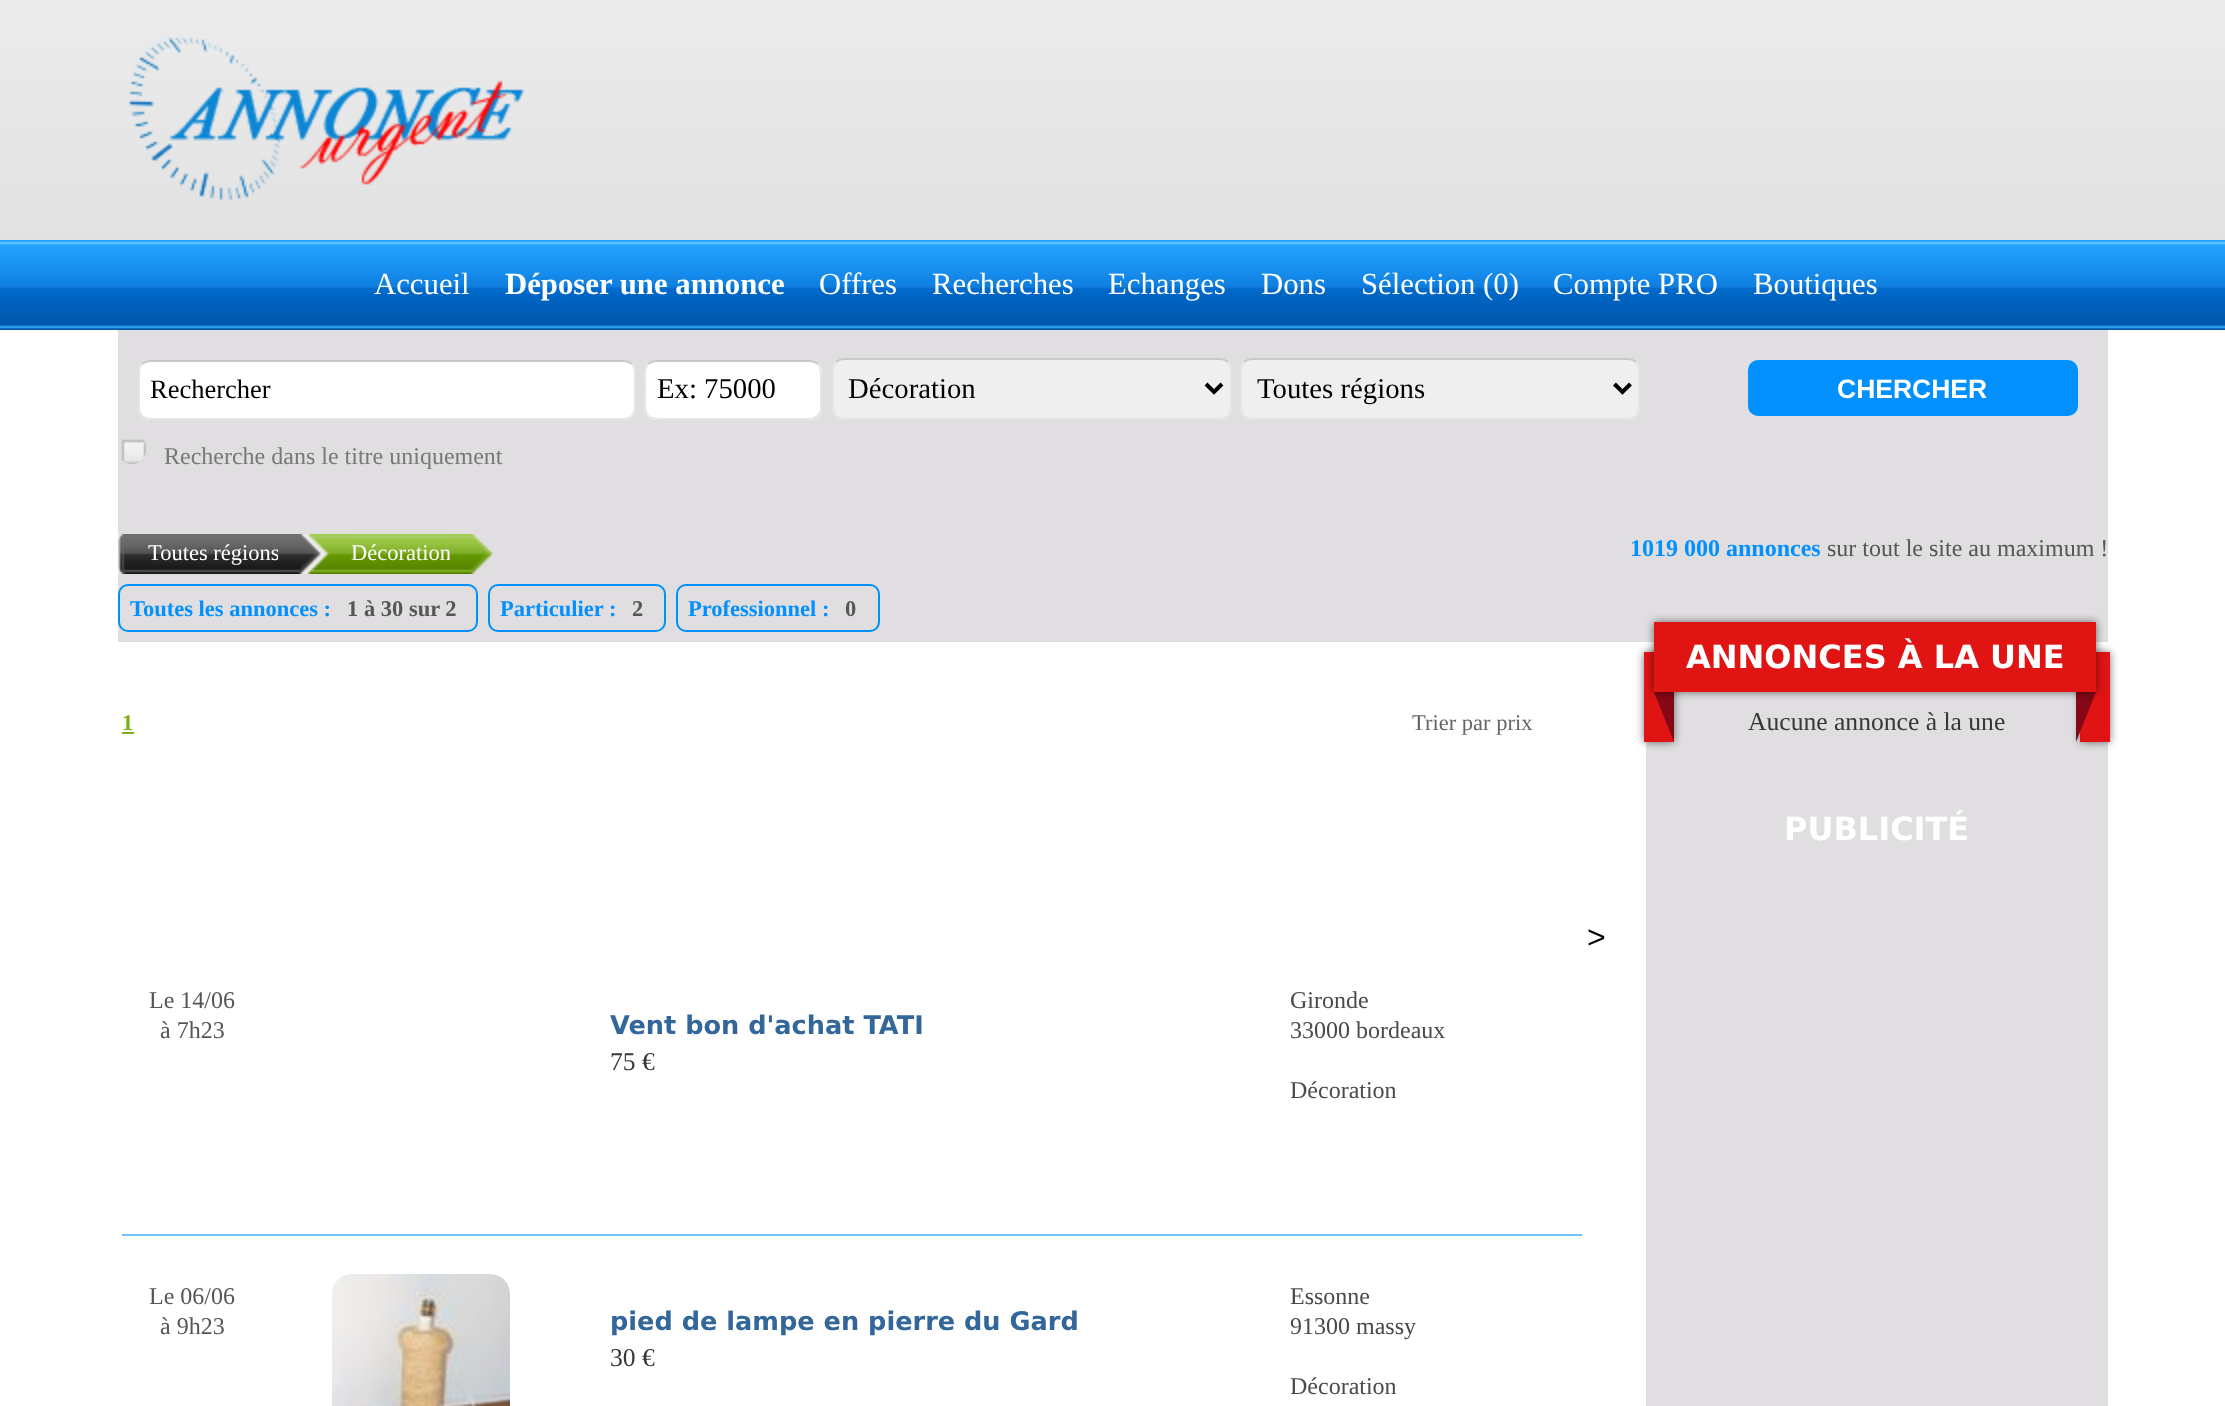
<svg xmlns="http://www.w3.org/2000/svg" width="2225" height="1406">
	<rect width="100%" height="100%" fill="#FFFFFF" />
	<image x="0" y="0" width="2225" height="240" href="assets/img1.png" />
	<image x="128" y="37" width="397" height="164" href="assets/img2.png" />
	<image x="0" y="240" width="2225" height="90" href="assets/img3.png" />
	<text x="374" y="294" font-family="Liberation Serif" font-size="30.75" fill="#FFFFFF">Accueil</text>
	<text x="505" y="294" font-family="Liberation Serif" font-size="30.75" font-weight="700" fill="#FFFFFF">Déposer une annonce</text>
	<g font-family="Liberation Serif" font-size="30.75" fill="#FFFFFF">
		<text x="819" y="294">Offres</text>
		<text x="932" y="294">Recherches</text>
		<text x="1108" y="294">Echanges</text>
		<text x="1261" y="294">Dons</text>
		<text x="1361" y="294">Sélection (0)</text>
		<text x="1553" y="294">Compte PRO</text>
		<text x="1753" y="294">Boutiques</text>
	</g>
	<rect x="118" y="330" width="1990" height="204" fill="#E0DEE0" />
	<rect x="138" y="360" width="498" height="60" rx="12" fill="#FFFFFF" />
	<path d="M142 364C144.5 362 147 361 150 361H624C627 361 629.5 362 632 364" fill="none" stroke="#C8C8C8" stroke-width="2" />
	<path d="M632 364C634 366.5 635 369 635 372V408C635 411 634 413.5 632 416C629.5 418 627 419 624 419H150C147 419 144.5 418 142 416C140 413.5 139 411 139 408V372C139 369 140 366.5 142 364" fill="none" stroke="#E4E4E4" stroke-width="2" />
	<text x="150" y="398" font-family="Liberation Serif" font-size="26.5" fill="#000000">Rechercher</text>
	<rect x="644" y="360" width="178" height="60" rx="12" fill="#FFFFFF" />
	<path d="M648 364C650.5 362 653 361 656 361H810C813 361 815.5 362 818 364" fill="none" stroke="#C8C8C8" stroke-width="2" />
	<path d="M818 364C821.5 368 821 373 821 378V410C820 415 815 419 810 419H681.5C641 419 645 422.5 645 384C645 377.5 643 369.5 648 364" fill="none" stroke="#E4E4E4" stroke-width="2" />
	<text x="657" y="398" font-family="Liberation Serif" font-size="28.75" fill="#000000">Ex: 75000</text>
	<rect x="832" y="358" width="400" height="62" rx="12" fill="#EFEFEF" />
	<path d="M836 362C838.5 360 841 359 844 359H1220C1223 359 1225.5 360 1228 362" fill="none" stroke="#C8C8C8" stroke-width="2" />
	<path d="M1228 362C1230 364.5 1231 367 1231 370V408C1231 411 1230 413.5 1228 416C1225.5 418 1223 419 1220 419H844C841 419 838.5 418 836 416C834 413.5 833 411 833 408V370C833 367 834 364.5 836 362" fill="none" stroke="#E4E4E4" stroke-width="2" />
	<path d="M1206 384L1214 392L1222 384" fill="none" stroke="#000000" stroke-width="4" />
	<text x="848" y="398" font-family="Liberation Serif" font-size="28.75" fill="#000000">Décoration</text>
	<rect x="1240" y="358" width="400" height="62" rx="12" fill="#EFEFEF" />
	<path d="M1244 362C1246.5 360 1249 359 1252 359H1628C1631 359 1633.5 360 1636 362" fill="none" stroke="#C8C8C8" stroke-width="2" />
	<path d="M1636 362C1638 364.5 1639 367 1639 370V408C1639 411 1638 413.5 1636 416C1633.5 418 1631 419 1628 419H1252C1249 419 1246.5 418 1244 416C1242 413.5 1241 411 1241 408V370C1241 367 1242 364.5 1244 362" fill="none" stroke="#E4E4E4" stroke-width="2" />
	<path d="M1614.5 384L1622.5 392L1630.5 384" fill="none" stroke="#000000" stroke-width="4" />
	<text x="1257" y="398" font-family="Liberation Serif" font-size="28.75" fill="#000000">Toutes régions</text>
	<rect x="1748" y="360" width="330" height="56" rx="10" fill="#0190FE" />
	<text x="1837" y="398" font-family="Liberation Sans" font-size="26.5" font-weight="700" fill="#FFFFFF">CHERCHER</text>
	<image x="121" y="439" width="25" height="25" href="assets/img4.png" />
	<text x="164" y="464" font-family="Liberation Serif" font-size="24" fill="#787878">Recherche dans le titre uniquement</text>
	<rect x="473" y="534" width="1635" height="40" fill="#E0DEE0" />
	<image x="118" y="534" width="30" height="40" href="assets/img5.png" />
	<image x="148" y="534" width="130" height="40" href="assets/img6.png" />
	<text x="148" y="560" font-family="Liberation Serif" font-size="22.5" fill="#FFFFFF">Toutes régions</text>
	<image x="278" y="534" width="72" height="40" href="assets/img7.png" />
	<image x="350" y="534" width="100" height="40" href="assets/img8.png" />
	<text x="351" y="560" font-family="Liberation Serif" font-size="22.5" fill="#FFFFFF">Décoration</text>
	<image x="450" y="534" width="42" height="40" href="assets/img9.png" />
	<text x="1630" y="556" font-family="Liberation Serif" font-size="24" font-weight="700" fill="#0190FE">1019 000 annonces</text>
	<text x="1827" y="556" font-family="Liberation Serif" font-size="24" fill="#565656">sur tout le site au maximum !</text>
	<rect x="118" y="574" width="1990" height="68" fill="#E0DEE0" />
	<rect x="119" y="585" width="358" height="46" rx="9" fill="none" stroke="#0190FE" stroke-width="2" />
	<text x="130" y="616" font-family="Liberation Serif" font-size="22.5" font-weight="700" fill="#0190FE">Toutes les annonces :</text>
	<text x="347" y="616" font-family="Liberation Serif" font-size="22.5" font-weight="700" fill="#565656">1 à 30 sur 2</text>
	<rect x="489" y="585" width="176" height="46" rx="9" fill="none" stroke="#0190FE" stroke-width="2" />
	<text x="500" y="616" font-family="Liberation Serif" font-size="22.5" font-weight="700" fill="#0190FE">Particulier :</text>
	<text x="632" y="616" font-family="Liberation Serif" font-size="22.5" font-weight="700" fill="#565656">2</text>
	<rect x="677" y="585" width="202" height="46" rx="9" fill="none" stroke="#0190FE" stroke-width="2" />
	<text x="688" y="616" font-family="Liberation Serif" font-size="22.5" font-weight="700" fill="#0190FE">Professionnel :</text>
	<text x="845" y="616" font-family="Liberation Serif" font-size="22.5" font-weight="700" fill="#565656">0</text>
	<text x="122" y="730" font-family="Liberation Serif" font-size="22.5" font-weight="700" fill="#7FAF17">1</text>
	<rect x="122" y="732" width="12" height="2" fill="#7FAF17" />
	<text x="1412" y="730" font-family="Liberation Serif" font-size="22.5" fill="#646464">Trier par prix</text>
	<text x="1587" y="948" font-family="Liberation Sans" font-size="32" fill="#000000">&gt;</text>
	<rect x="122" y="1234" width="1460" height="2" fill="#72C2F7" />
	<g font-family="Liberation Serif" font-size="24" fill="#565656">
		<text x="149" y="1008">Le 14/06</text>
		<text x="160" y="1038">à 7h23</text>
	</g>
	<text x="610" y="1034" font-family="DejaVu Sans" font-size="25.6" font-weight="700" fill="#336699">Vent bon d'achat TATI</text>
	<text x="610" y="1070" font-family="Liberation Serif" font-size="25.6" fill="#373737">75 €</text>
	<g font-family="Liberation Serif" font-size="24" fill="#4A4A4A">
		<text x="1290" y="1008">Gironde</text>
		<text x="1290" y="1038">33000 bordeaux</text>
		<text x="1290" y="1098">Décoration</text>
	</g>
	<g font-family="Liberation Serif" font-size="24" fill="#565656">
		<text x="149" y="1304">Le 06/06</text>
		<text x="160" y="1334">à 9h23</text>
	</g>
	<image x="332" y="1274" width="178" height="132" href="assets/img10.png" />
	<text x="610" y="1330" font-family="DejaVu Sans" font-size="25.6" font-weight="700" fill="#336699">pied de lampe en pierre du Gard</text>
	<text x="610" y="1366" font-family="Liberation Serif" font-size="25.6" fill="#373737">30 €</text>
	<g font-family="Liberation Serif" font-size="24" fill="#4A4A4A">
		<text x="1290" y="1304">Essonne</text>
		<text x="1290" y="1334">91300 massy</text>
		<text x="1290" y="1394">Décoration</text>
	</g>
	<rect x="1646" y="692" width="462" height="714" fill="#E0DEE0" />
	<rect x="1644" y="652" width="30" height="90" fill="#000000" fill-opacity="0.55" filter="blur(4px)" />
	<rect x="1644" y="652" width="30" height="90" fill="#E11414" />
	<rect x="2080" y="652" width="30" height="90" fill="#000000" fill-opacity="0.55" filter="blur(4px)" />
	<rect x="2080" y="652" width="30" height="90" fill="#E11414" />
	<path d="M1674 692V742L1654 692Z" fill="#840815" />
	<path d="M2076 742V692H2096Z" fill="#840815" />
	<rect x="1654" y="622" width="442" height="70" fill="#000000" fill-opacity="0.55" filter="blur(4px)" />
	<rect x="1654" y="622" width="442" height="70" fill="#E11414" />
	<text x="1686" y="668" font-family="DejaVu Sans" font-size="32" font-weight="700" fill="#FFFFFF">ANNONCES À LA UNE</text>
	<text x="1748" y="730" font-family="Liberation Serif" font-size="25.6" fill="#373737">Aucune annonce à la une</text>
	<text x="1784" y="840" font-family="DejaVu Sans" font-size="32" font-weight="700" fill="#FFFFFF">PUBLICITÉ</text>
</svg>
